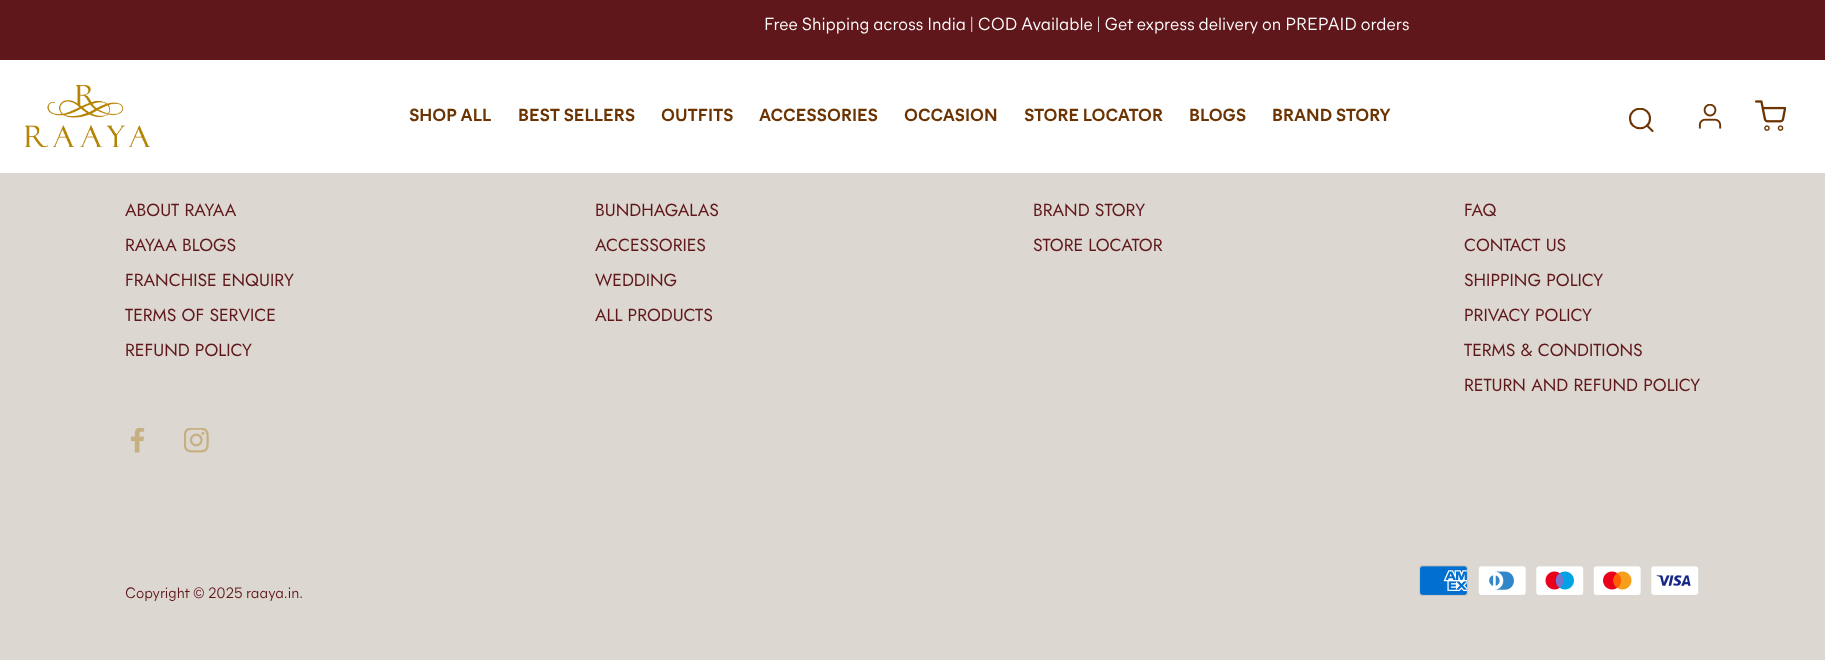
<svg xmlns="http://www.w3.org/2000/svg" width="1825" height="660">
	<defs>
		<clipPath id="clip1"><rect x="1629" y="108" width="25" height="25" /></clipPath>
	</defs>
	<rect width="100%" height="100%" fill="#DCD7D0" />
	<rect x="0" y="60" width="1825" height="113" fill="#FFFFFF" />
	<rect x="0" y="0" width="1825" height="60" fill="#5F171B" />
	<text x="764" y="30" font-family="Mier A" font-size="17.5" fill="#FFFFFF">Free Shipping across India | COD Available | Get express delivery on PREPAID orders</text>
	<image x="25" y="85" width="125" height="63" href="assets/img1.png" />
	<g font-family="Mier A" font-size="17.5" font-weight="700" fill="#6C3403">
		<text x="409" y="121">SHOP ALL</text>
		<text x="518" y="121">BEST SELLERS</text>
		<text x="661" y="121">OUTFITS</text>
		<text x="759" y="121">ACCESSORIES</text>
		<text x="904" y="121">OCCASION</text>
		<text x="1024" y="121">STORE LOCATOR</text>
		<text x="1189" y="121">BLOGS</text>
		<text x="1272" y="121">BRAND STORY</text>
	</g>
	<g clip-path="url(#clip1)">
		<path d="M1650 118.5C1650 131.5 1630 131.5 1630 118.5C1630 105.5 1650 105.5 1650 118.5Z" fill="none" stroke="#6C3403" stroke-width="2.1" stroke-linecap="round" stroke-linejoin="round" />
	</g>
	<path d="M1652.5 131L1647 125.5" fill="none" stroke="#6C3403" stroke-width="2.1" stroke-linecap="round" stroke-linejoin="round" />
	<image x="1698" y="104" width="24" height="25" href="assets/img2.png" />
	<image x="1755" y="100" width="31" height="31" href="assets/img3.png" />
	<g font-family="Jost" font-size="17.5" fill="#5F171B">
		<text x="125" y="216">ABOUT RAYAA</text>
		<text x="125" y="251">RAYAA BLOGS</text>
		<text x="125" y="286">FRANCHISE ENQUIRY</text>
		<text x="125" y="321">TERMS OF SERVICE</text>
		<text x="125" y="356">REFUND POLICY</text>
	</g>
	<image x="130" y="428" width="15" height="25" href="assets/img4.png" />
	<image x="184" y="428" width="25" height="25" href="assets/img5.png" />
	<g font-family="Jost" font-size="17.5" fill="#5F171B">
		<text x="595" y="216">BUNDHAGALAS</text>
		<text x="595" y="251">ACCESSORIES</text>
		<text x="595" y="286">WEDDING</text>
		<text x="595" y="321">ALL PRODUCTS</text>
		<text x="1033" y="216">BRAND STORY</text>
		<text x="1033" y="251">STORE LOCATOR</text>
		<text x="1464" y="216">FAQ</text>
		<text x="1464" y="251">CONTACT US</text>
		<text x="1464" y="286">SHIPPING POLICY</text>
		<text x="1464" y="321">PRIVACY POLICY</text>
		<text x="1464" y="356">TERMS &amp; CONDITIONS</text>
		<text x="1464" y="391">RETURN AND REFUND POLICY</text>
	</g>
	<text x="125" y="598" font-family="Mier A" font-size="14.9" fill="#5F171B">Copyright © 2025 raaya.in.</text>
	<image x="1419" y="565" width="49" height="31" href="assets/img6.png" />
	<image x="1478" y="566" width="48" height="29" href="assets/img7.png" />
	<image x="1536" y="566" width="48" height="29" href="assets/img8.png" />
	<image x="1593" y="566" width="48" height="29" href="assets/img9.png" />
	<image x="1651" y="566" width="48" height="29" href="assets/img10.png" />
</svg>
